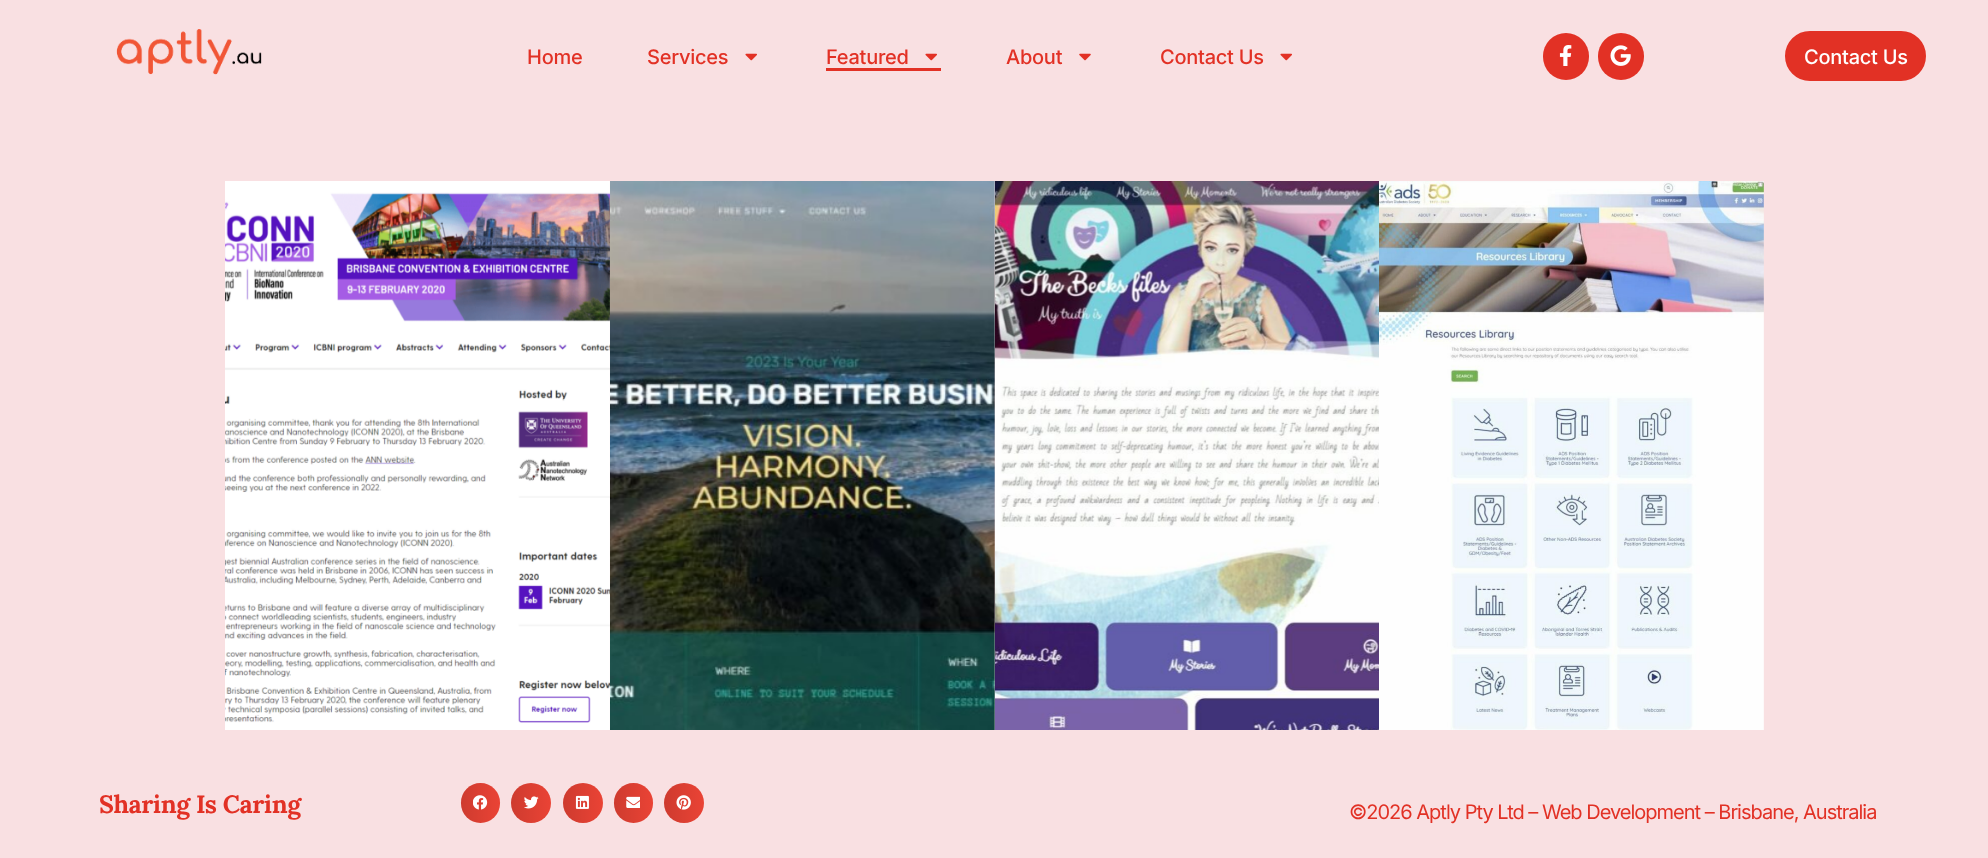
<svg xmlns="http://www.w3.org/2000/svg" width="1988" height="858">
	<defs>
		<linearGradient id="g1" gradientUnits="userSpaceOnUse" x1="461" y1="803" x2="500" y2="803"><stop offset="0" stop-color="#000000" stop-opacity="0.12" /><stop offset="1" stop-color="#000000" stop-opacity="0" /></linearGradient>
		<linearGradient id="g2" gradientUnits="userSpaceOnUse" x1="511" y1="803" x2="551" y2="803"><stop offset="0" stop-color="#000000" stop-opacity="0.12" /><stop offset="1" stop-color="#000000" stop-opacity="0" /></linearGradient>
		<linearGradient id="g3" gradientUnits="userSpaceOnUse" x1="563" y1="803" x2="603" y2="803"><stop offset="0" stop-color="#000000" stop-opacity="0.12" /><stop offset="1" stop-color="#000000" stop-opacity="0" /></linearGradient>
		<linearGradient id="g4" gradientUnits="userSpaceOnUse" x1="614" y1="803" x2="653" y2="803"><stop offset="0" stop-color="#000000" stop-opacity="0.12" /><stop offset="1" stop-color="#000000" stop-opacity="0" /></linearGradient>
		<linearGradient id="g5" gradientUnits="userSpaceOnUse" x1="664" y1="803" x2="704" y2="803"><stop offset="0" stop-color="#000000" stop-opacity="0.12" /><stop offset="1" stop-color="#000000" stop-opacity="0" /></linearGradient>
	</defs>
	<rect width="100%" height="100%" fill="#F9E0E2" />
	<image x="116" y="29" width="146" height="46" href="assets/img1.png" />
	<g font-family="Inter" font-size="20" font-weight="500" letter-spacing="-0.25" fill="#E23125">
		<text x="527" y="64">Home</text>
		<text x="647" y="64">Services</text>
	</g>
	<image x="745" y="53" width="12" height="8" href="assets/img2.png" />
	<text x="826" y="64" font-family="Inter" font-size="20" font-weight="500" letter-spacing="-0.25" fill="#E23125">Featured</text>
	<image x="925" y="53" width="12" height="8" href="assets/img2.png" />
	<rect x="826" y="68" width="115" height="3" fill="#E23125" />
	<text x="1006" y="64" font-family="Inter" font-size="20" font-weight="500" letter-spacing="-0.25" fill="#E23125">About</text>
	<image x="1079" y="53" width="12" height="8" href="assets/img3.png" />
	<text x="1160" y="64" font-family="Inter" font-size="20" font-weight="500" letter-spacing="-0.25" fill="#E23125">Contact Us</text>
	<image x="1280" y="53" width="12" height="8" href="assets/img2.png" />
	<rect x="1543" y="33" width="46" height="47" rx="23" fill="#E23125" />
	<image x="1559" y="45" width="13" height="21" href="assets/img4.png" />
	<rect x="1598" y="33" width="46" height="47" rx="23" fill="#E23125" />
	<image x="1610" y="45" width="21" height="21" href="assets/img5.png" />
	<rect x="1786.5" y="32.5" width="138" height="47" rx="23.5" fill="#E23125" stroke="#E23125" stroke-width="3" />
	<text x="1804" y="64" font-family="Inter" font-size="20" font-weight="500" letter-spacing="-0.25" fill="#FFFFFF">Contact Us</text>
	<image x="225" y="181" width="385" height="549" href="assets/img6.png" />
	<image x="610" y="181" width="385" height="549" href="assets/img7.png" />
	<image x="995" y="181" width="384" height="549" href="assets/img8.png" />
	<image x="1379" y="181" width="385" height="549" href="assets/img9.png" />
	<text x="99" y="813" font-family="Lora" font-size="25" font-weight="700" letter-spacing="-0.4" fill="#E23125">Sharing Is Caring</text>
	<rect x="461" y="783" width="39" height="40" rx="19.5" fill="#EA4335" />
	<rect x="461" y="783" width="39" height="40" rx="19.5" fill="url(#g1)" />
	<image x="473" y="795" width="15" height="15" href="assets/img10.png" />
	<circle cx="531" cy="803" r="20" fill="#EA4335" />
	<circle cx="531" cy="803" r="20" fill="url(#g2)" />
	<image x="524" y="796" width="15" height="13" href="assets/img11.png" />
	<circle cx="583" cy="803" r="20" fill="#EA4335" />
	<circle cx="583" cy="803" r="20" fill="url(#g3)" />
	<image x="575" y="795" width="14" height="14" href="assets/img12.png" />
	<rect x="614" y="783" width="39" height="40" rx="19.5" fill="#EA4335" />
	<rect x="614" y="783" width="39" height="40" rx="19.5" fill="url(#g4)" />
	<image x="626" y="796" width="14" height="12" href="assets/img13.png" />
	<circle cx="684" cy="803" r="20" fill="#EA4335" />
	<circle cx="684" cy="803" r="20" fill="url(#g5)" />
	<image x="676" y="795" width="15" height="15" href="assets/img14.png" />
	<text x="1349" y="819" font-family="Inter" font-size="20" letter-spacing="-1" fill="#E23125">©2026 Aptly Pty Ltd – Web Development – Brisbane, Australia</text>
</svg>
